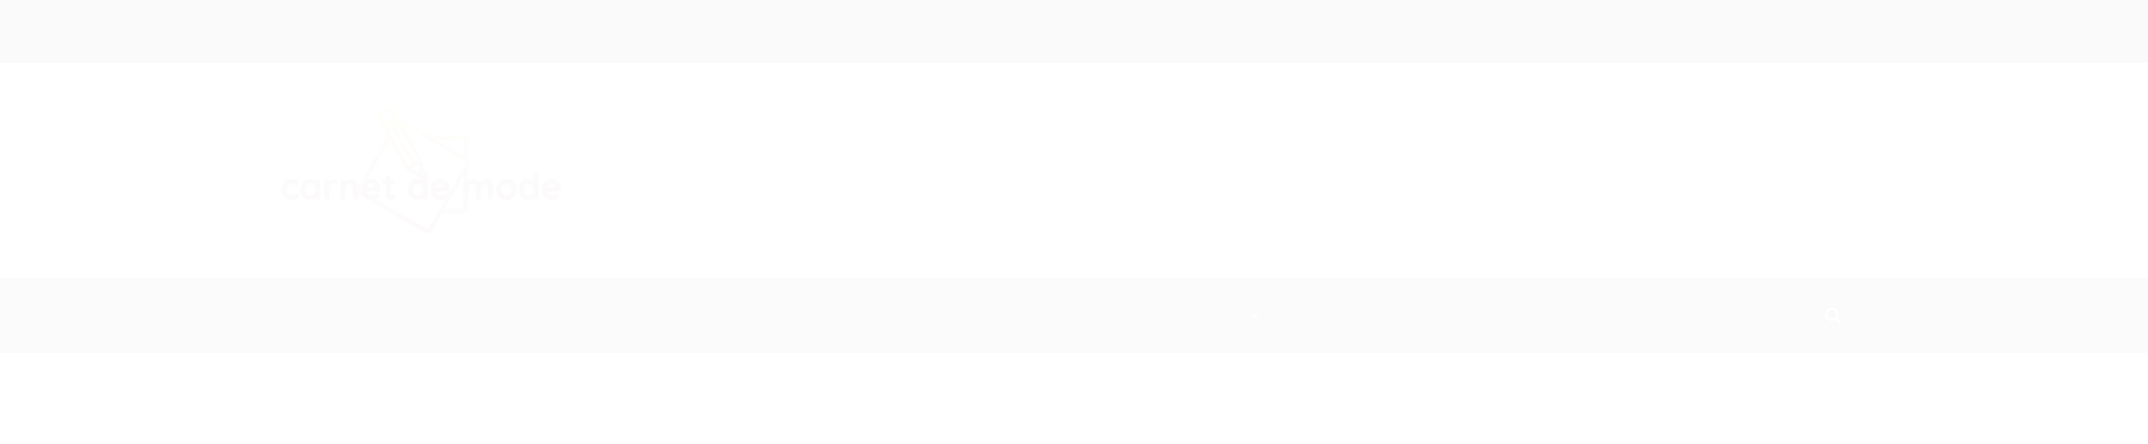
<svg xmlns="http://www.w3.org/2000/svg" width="2148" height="444">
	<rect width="100%" height="100%" fill="#FFFFFF" />
	<rect x="0" y="0" width="2148" height="63" fill="#FAFAFA" />
	<image x="281" y="106" width="281" height="128" href="assets/img1.png" />
	<rect x="0" y="278" width="2148" height="75" fill="#FBFBFB" />
	<image x="1249" y="312" width="11" height="7" href="assets/img2.png" />
	<image x="1825" y="307" width="17" height="17" href="assets/img3.png" />
</svg>
